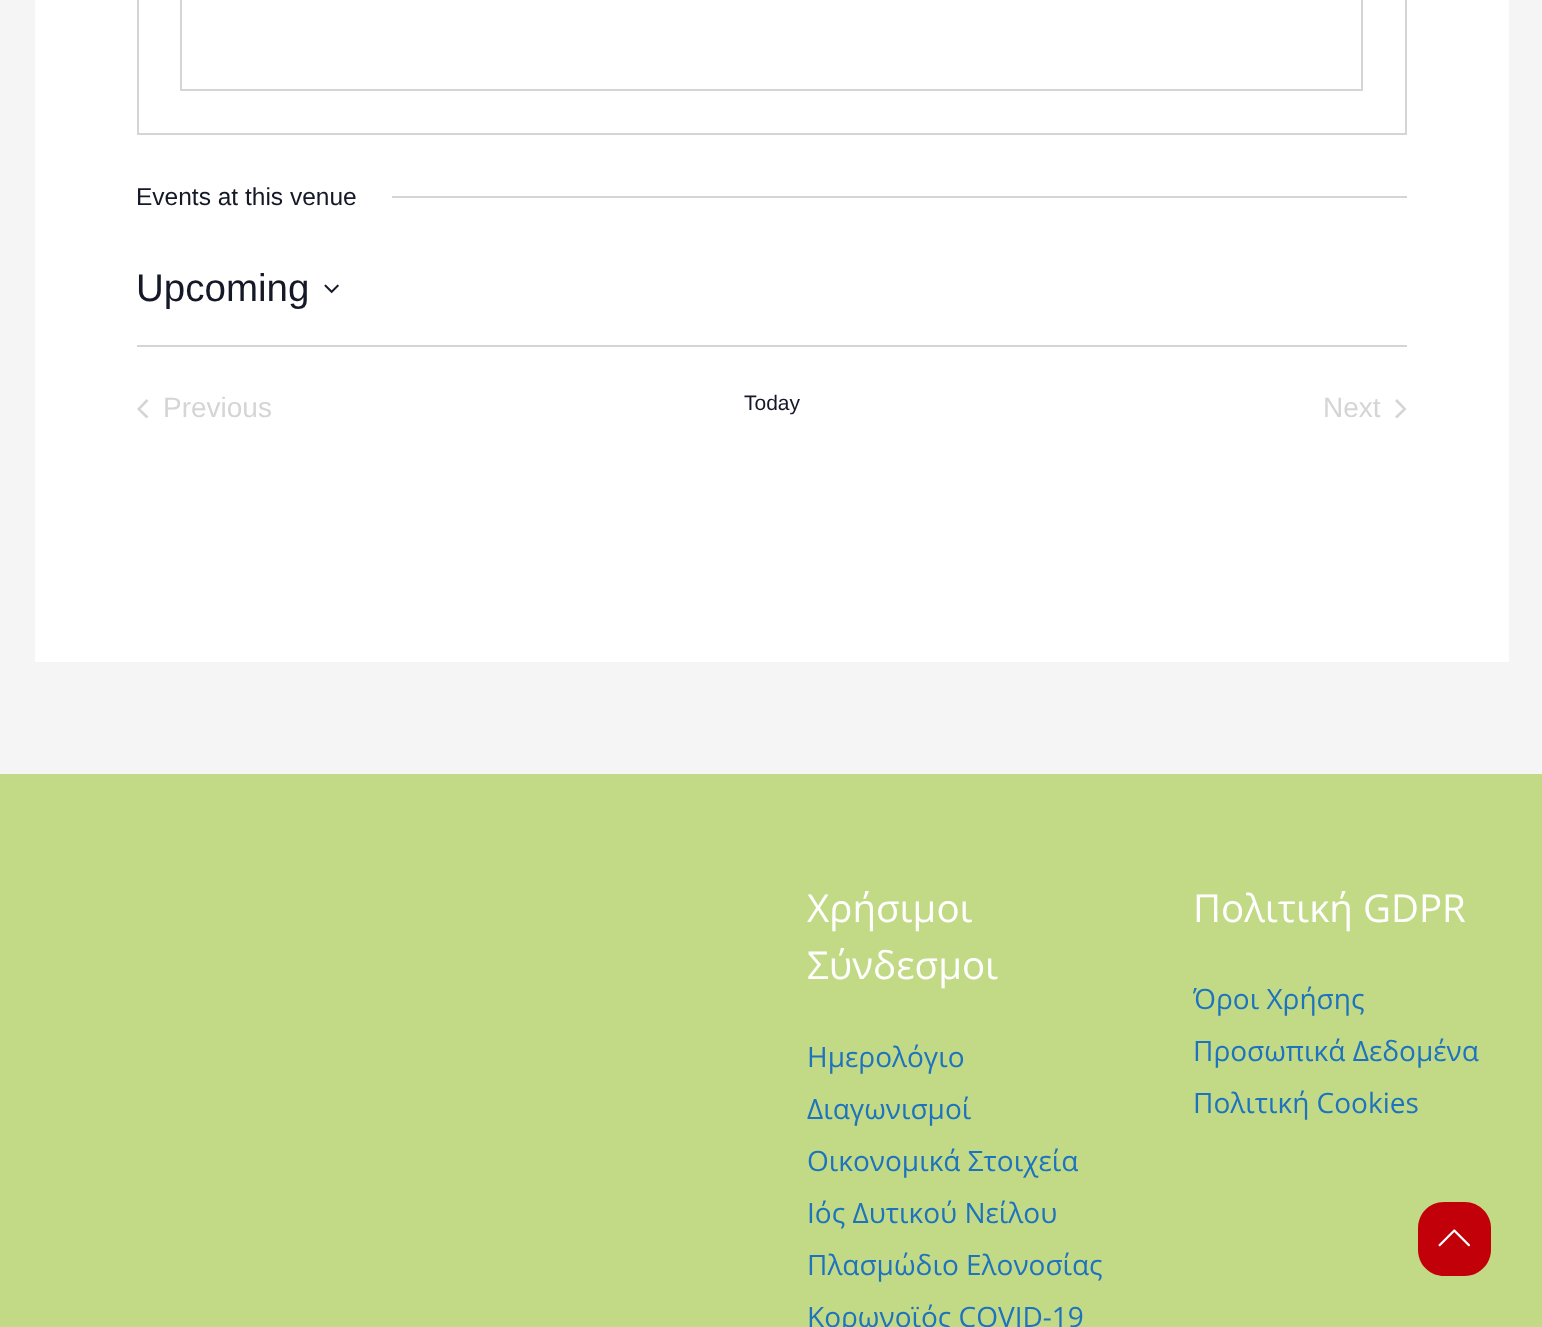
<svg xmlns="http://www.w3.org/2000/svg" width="1542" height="1327">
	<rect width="100%" height="100%" fill="#F5F5F5" />
	<rect x="35" y="0" width="1474" height="662" fill="#FFFFFF" />
	<rect x="138" y="-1" width="1268" height="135" fill="none" stroke="#D5D5D5" stroke-width="2" />
	<rect x="181" y="-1" width="1181" height="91" fill="none" stroke="#D5D5D5" stroke-width="2" />
	<text x="136" y="205" font-family="Liberation Sans" font-size="24.5" fill="#141827">Events at this venue</text>
	<rect x="392" y="196" width="1015" height="2" fill="#D5D5D5" />
	<text x="136" y="301" font-family="Liberation Sans" font-size="38.5" fill="#141827">Upcoming</text>
	<image x="324" y="284" width="15" height="10" href="assets/img1.png" />
	<rect x="137" y="345" width="1270" height="2" fill="#D5D5D5" />
	<path d="M148.5 416.5L146.5 418.5L137 409L146.5 399L148.5 401L140.5 409Z" fill="#D5D5D5" />
	<text x="163" y="417" font-family="Liberation Sans" font-size="28" fill="#D5D5D5">Previous</text>
	<text x="744" y="410" font-family="Liberation Sans" font-size="21" fill="#141827">Today</text>
	<text x="1323" y="417" font-family="Liberation Sans" font-size="28" fill="#D5D5D5">Next</text>
	<path d="M1395 401L1397 399L1406.5 409L1397 418.5L1395 416.5L1403 409Z" fill="#D5D5D5" />
	<rect x="0" y="774" width="1542" height="553" fill="#C2DA86" />
	<g font-family="Open Sans" font-size="38.5" fill="#FFFFFF">
		<text x="807" y="922">Χρήσιμοι</text>
		<text x="807" y="979">Σύνδεσμοι</text>
	</g>
	<g font-family="Open Sans" font-size="28" fill="#1E73BE">
		<text x="807" y="1067">Ημερολόγιο</text>
		<text x="807" y="1119">Διαγωνισμοί</text>
		<text x="807" y="1171">Οικονομικά Στοιχεία</text>
		<text x="807" y="1223">Ιός Δυτικού Νείλου</text>
		<text x="807" y="1275">Πλασμώδιο Ελονοσίας</text>
		<text x="807" y="1327">Κορωνοϊός COVID-19</text>
	</g>
	<text x="1193" y="922" font-family="Open Sans" font-size="38.5" fill="#FFFFFF">Πολιτική GDPR</text>
	<g font-family="Open Sans" font-size="28" fill="#1E73BE">
		<text x="1193" y="1009">Όροι Χρήσης</text>
		<text x="1193" y="1061">Προσωπικά Δεδομένα</text>
		<text x="1193" y="1113">Πολιτική Cookies</text>
	</g>
	<path d="M1465 1276H1444C1429 1276 1418 1264 1418 1250V1228C1418 1214 1429 1202 1444 1202H1465C1479 1202 1491 1214 1491 1228V1250C1491 1264 1479 1276 1465 1276Z" fill="#C10009" />
	<image x="1438" y="1229" width="32" height="18" href="assets/img2.png" />
</svg>
